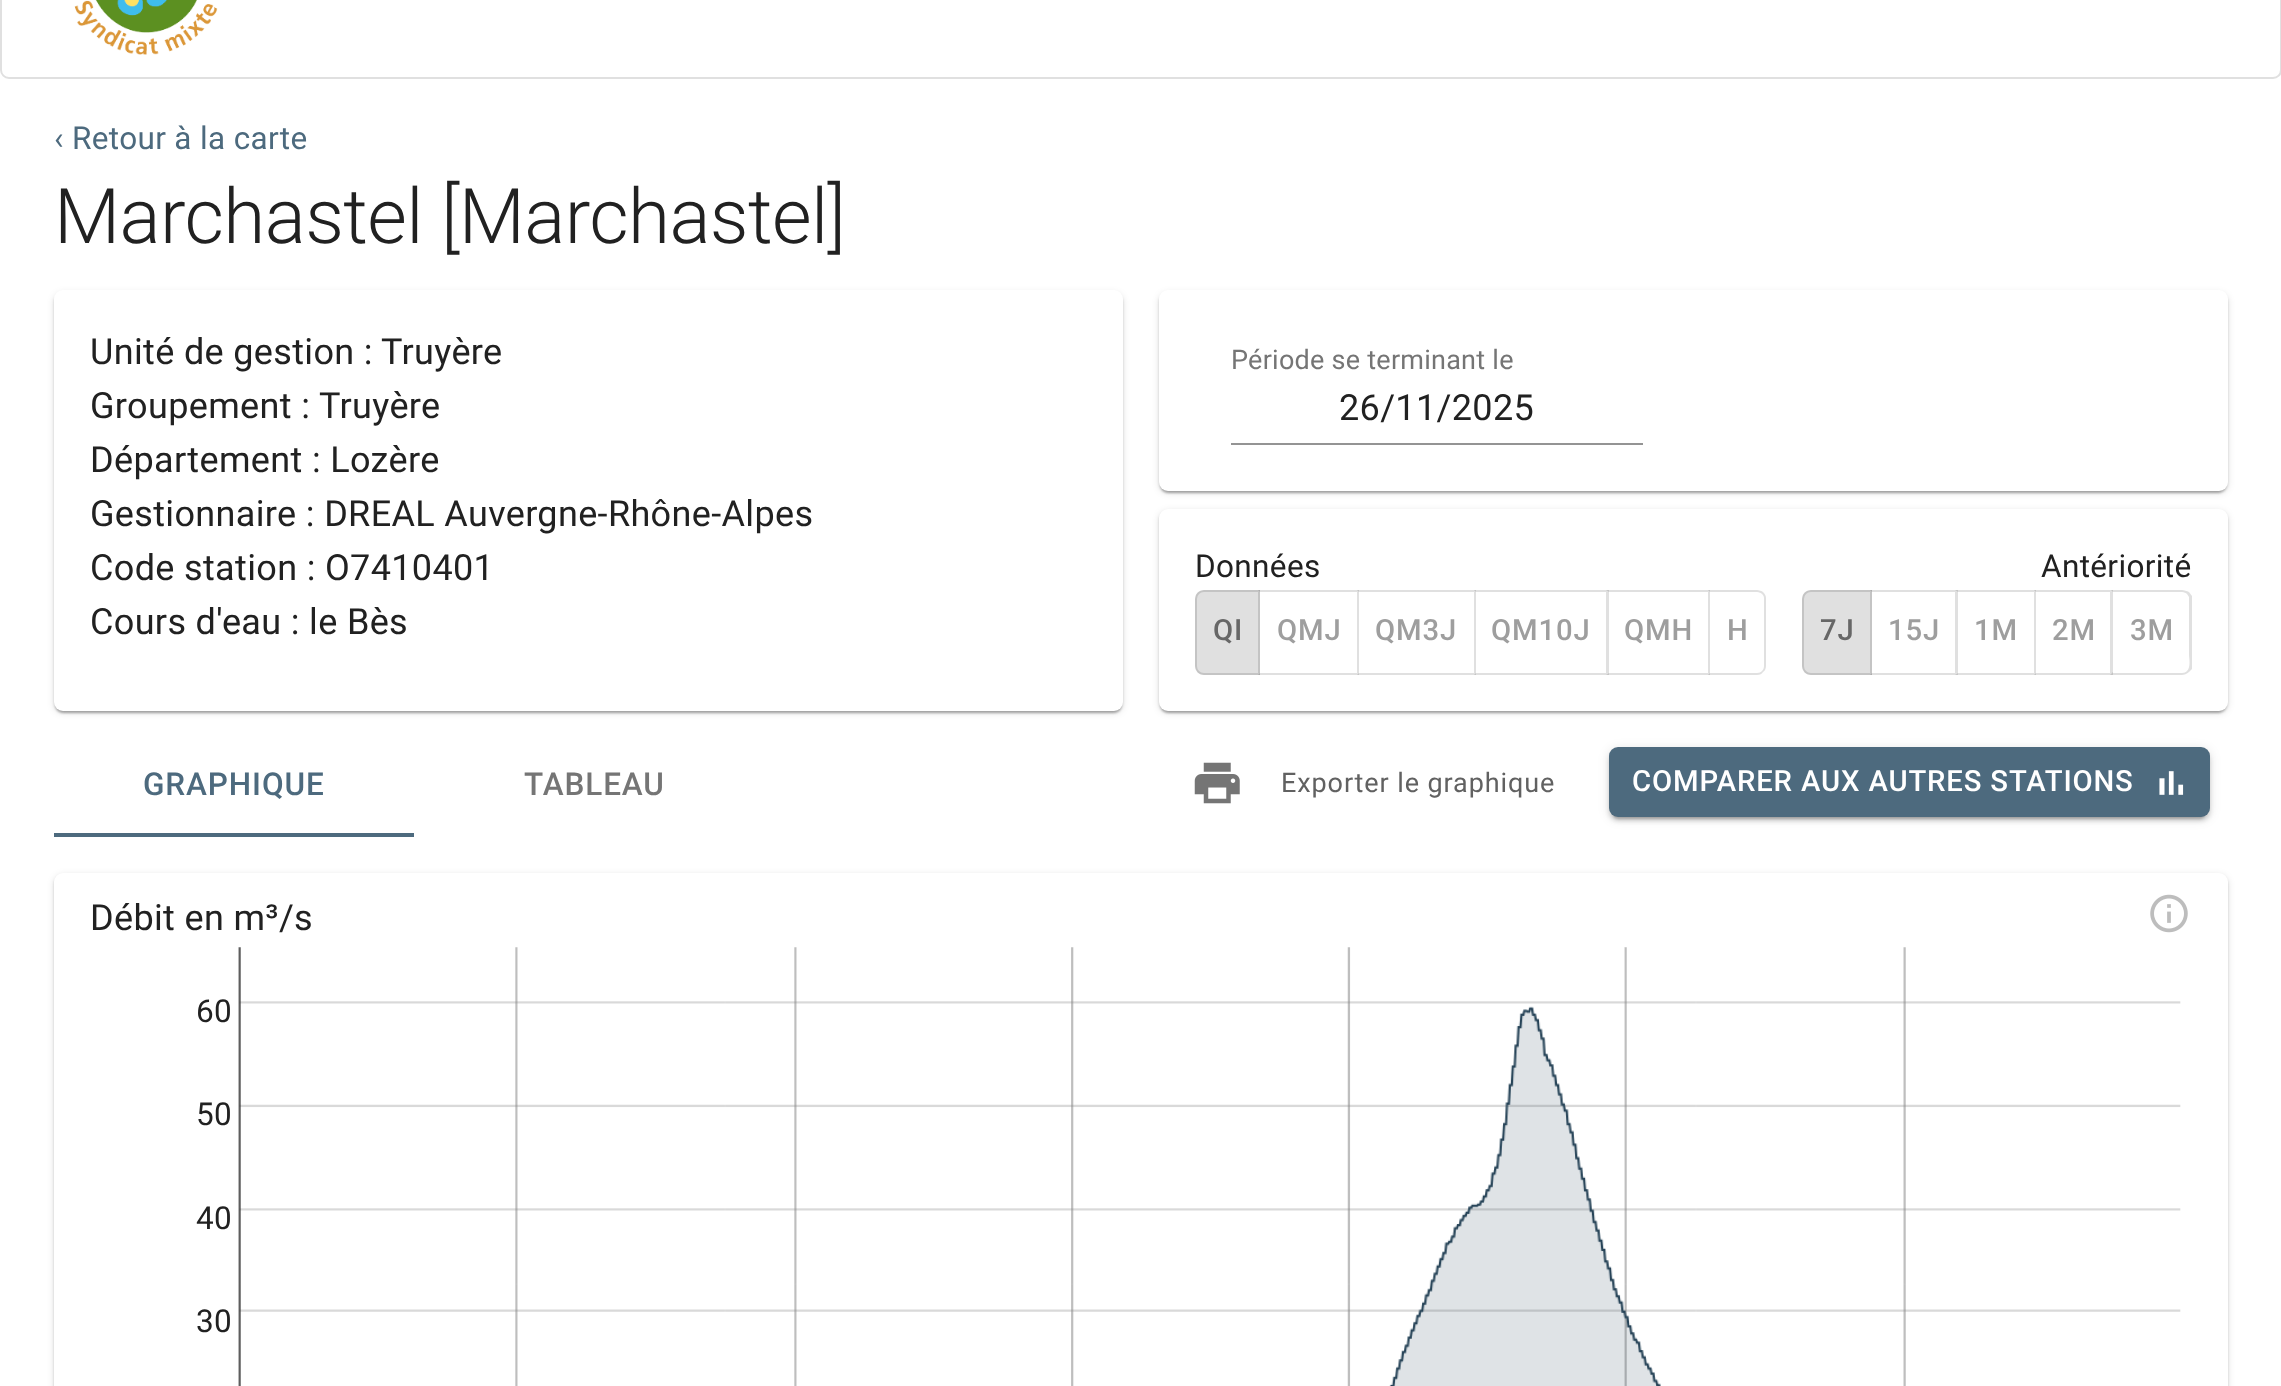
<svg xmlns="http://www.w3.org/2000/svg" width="2281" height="1386">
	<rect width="100%" height="100%" fill="#FFFFFF" />
	<rect x="1" y="-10" width="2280" height="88" rx="8" fill="none" stroke="#E0E0E0" stroke-width="2" />
	<image x="74" y="0" width="144" height="55" href="assets/img1.png" />
	<text x="54" y="149" font-family="Roboto" font-size="31.5" letter-spacing="0.35" fill="#4D6A7E">‹ Retour à la carte</text>
	<text x="54" y="243" font-family="Roboto" font-size="76.5" font-weight="300" letter-spacing="-0.6" fill="#212121">Marchastel [Marchastel]</text>
	<rect x="54" y="293" width="1069" height="420" rx="9" fill="#000000" fill-opacity="0.12" filter="blur(3.5px)" />
	<rect x="54" y="293" width="1069" height="420" rx="9" fill="#000000" fill-opacity="0.14" filter="blur(1px)" />
	<rect x="56" y="297" width="1065" height="416" rx="7" fill="#000000" fill-opacity="0.2" filter="blur(1px)" />
	<rect x="54" y="290" width="1069" height="421" rx="9" fill="#FFFFFF" />
	<g font-family="Roboto" font-size="36" letter-spacing="0.35" fill="#212121">
		<text x="90" y="364">Unité de gestion :</text>
		<text x="381" y="364">Truyère</text>
		<text x="90" y="418">Groupement :</text>
		<text x="319" y="418">Truyère</text>
		<text x="90" y="472">Département : Lozère</text>
		<text x="90" y="526">Gestionnaire : DREAL Auvergne-Rhône-Alpes</text>
		<text x="90" y="580">Code station : O7410401</text>
		<text x="90" y="634">Cours d'eau : le Bès</text>
	</g>
	<rect x="1159" y="293" width="1069" height="200" rx="9" fill="#000000" fill-opacity="0.12" filter="blur(3.5px)" />
	<rect x="1159" y="293" width="1069" height="200" rx="9" fill="#000000" fill-opacity="0.14" filter="blur(1px)" />
	<rect x="1161" y="297" width="1064" height="196" rx="7" fill="#000000" fill-opacity="0.2" filter="blur(1px)" />
	<rect x="1159" y="290" width="1069" height="201" rx="9" fill="#FFFFFF" />
	<text x="1231" y="369" font-family="Roboto" font-size="27" letter-spacing="0.25" fill="#757575">Période se terminant le</text>
	<text x="1339" y="420" font-family="Roboto" font-size="36" letter-spacing="0.35" fill="#212121">26/11/2025</text>
	<rect x="1231" y="443" width="412" height="2" fill="#949494" />
	<rect x="1159" y="511" width="1069" height="202" rx="9" fill="#000000" fill-opacity="0.12" filter="blur(3.5px)" />
	<rect x="1159" y="511" width="1069" height="202" rx="9" fill="#000000" fill-opacity="0.14" filter="blur(1px)" />
	<rect x="1161" y="515" width="1064" height="198" rx="7" fill="#000000" fill-opacity="0.2" filter="blur(1px)" />
	<rect x="1159" y="509" width="1069" height="202" rx="9" fill="#FFFFFF" />
	<text x="1195" y="577" font-family="Roboto" font-size="31.5" letter-spacing="0.35" fill="#212121">Données</text>
	<path d="M1204 590H1260V675H1204C1199 675 1195 671 1195 666V599C1195 594 1199 590 1204 590Z" fill="#E0E0E0" />
	<path d="M1204 591H1259V674H1204C1199.5 674 1196 670.5 1196 666V599C1196 594.5 1199.5 591 1204 591Z" fill="none" stroke="#000000" stroke-opacity="0.12" stroke-width="2" />
	<text x="1213" y="640" font-family="Roboto" font-size="29.25" font-weight="500" letter-spacing="0.85" fill="#676767">QI</text>
	<path d="M1258 590H1359L1357 592H1260Z" fill="#000000" fill-opacity="0.12" />
	<path d="M1359 590V675L1357 673V592Z" fill="#000000" fill-opacity="0.12" />
	<path d="M1359 675H1258L1260 673H1357Z" fill="#000000" fill-opacity="0.12" />
	<text x="1277" y="640" font-family="Roboto" font-size="29.25" font-weight="500" letter-spacing="0.85" fill="#9E9E9E">QMJ</text>
	<path d="M1357 590H1476L1474 592H1359Z" fill="#000000" fill-opacity="0.12" />
	<path d="M1476 590V675L1474 673V592Z" fill="#000000" fill-opacity="0.12" />
	<path d="M1476 675H1357L1359 673H1474Z" fill="#000000" fill-opacity="0.12" />
	<text x="1375" y="640" font-family="Roboto" font-size="29.25" font-weight="500" letter-spacing="0.85" fill="#9E9E9E">QM3J</text>
	<path d="M1474 590H1609L1606 592H1476Z" fill="#000000" fill-opacity="0.12" />
	<path d="M1609 590V675L1606 673V592Z" fill="#000000" fill-opacity="0.12" />
	<path d="M1609 675H1474L1476 673H1606Z" fill="#000000" fill-opacity="0.12" />
	<text x="1491" y="640" font-family="Roboto" font-size="29.25" font-weight="500" letter-spacing="0.85" fill="#9E9E9E">QM10J</text>
	<path d="M1606 590H1710L1708 592H1609Z" fill="#000000" fill-opacity="0.12" />
	<path d="M1710 590V675L1708 673V592Z" fill="#000000" fill-opacity="0.12" />
	<path d="M1710 675H1606L1609 673H1708Z" fill="#000000" fill-opacity="0.12" />
	<text x="1624" y="640" font-family="Roboto" font-size="29.25" font-weight="500" letter-spacing="0.85" fill="#9E9E9E">QMH</text>
	<path d="M1763 592C1762 591 1759 590 1757 590H1708L1710 592H1757C1759 592 1761 593 1762 594Z" fill="#000000" fill-opacity="0.12" />
	<path d="M1763 592C1765 594 1766 596 1766 598V666C1766 668 1765 671 1763 672L1762 671C1763 670 1764 668 1764 666V598C1764 596 1763 595 1762 594Z" fill="#000000" fill-opacity="0.12" />
	<path d="M1708 675H1757C1760 675 1762 674 1763 672L1762 671C1761 672 1759 673 1757 673H1710Z" fill="#000000" fill-opacity="0.12" />
	<text x="1727" y="640" font-family="Roboto" font-size="29.25" font-weight="500" letter-spacing="0.85" fill="#9E9E9E">H</text>
	<text x="2041" y="577" font-family="Roboto" font-size="31.5" letter-spacing="0.35" fill="#212121">Antériorité</text>
	<path d="M1811 590H1872V675H1811C1806 675 1802 671 1802 666V599C1802 594 1806 590 1811 590Z" fill="#E0E0E0" />
	<path d="M1811 591H1871V674H1811C1806.5 674 1803 670.5 1803 666V599C1803 594.5 1806.5 591 1811 591Z" fill="none" stroke="#000000" stroke-opacity="0.12" stroke-width="2" />
	<text x="1820" y="640" font-family="Roboto" font-size="29.25" font-weight="500" letter-spacing="0.85" fill="#676767">7J</text>
	<path d="M1870 590H1958L1955 592H1872Z" fill="#000000" fill-opacity="0.12" />
	<path d="M1958 590V675L1955 673V592Z" fill="#000000" fill-opacity="0.12" />
	<path d="M1958 675H1870L1872 673H1955Z" fill="#000000" fill-opacity="0.12" />
	<text x="1888" y="640" font-family="Roboto" font-size="29.25" font-weight="500" letter-spacing="0.85" fill="#9E9E9E">15J</text>
	<path d="M1955 590H2036L2034 592H1958Z" fill="#000000" fill-opacity="0.12" />
	<path d="M2036 590V675L2034 673V592Z" fill="#000000" fill-opacity="0.12" />
	<path d="M2036 675H1955L1958 673H2034Z" fill="#000000" fill-opacity="0.12" />
	<text x="1974" y="640" font-family="Roboto" font-size="29.25" font-weight="500" letter-spacing="0.85" fill="#9E9E9E">1M</text>
	<path d="M2034 590H2113L2110 592H2036Z" fill="#000000" fill-opacity="0.12" />
	<path d="M2113 590V675L2110 673V592Z" fill="#000000" fill-opacity="0.12" />
	<path d="M2113 675H2034L2036 673H2110Z" fill="#000000" fill-opacity="0.12" />
	<text x="2052" y="640" font-family="Roboto" font-size="29.25" font-weight="500" letter-spacing="0.85" fill="#9E9E9E">2M</text>
	<path d="M2113 592H2182C2184 592 2186 593 2187 594L2189 592C2187 591 2184 590 2182 590H2111Z" fill="#000000" fill-opacity="0.12" />
	<path d="M2189 592L2192 596V669L2189 672L2187 671C2191 667 2189 658 2189 655V597L2187 594Z" fill="#000000" fill-opacity="0.12" />
	<path d="M2110 675H2182C2184 675 2187 674 2189 672L2187 671C2186 672 2184 673 2182 673H2113V672Z" fill="#000000" fill-opacity="0.12" />
	<text x="2130" y="640" font-family="Roboto" font-size="29.25" font-weight="500" letter-spacing="0.85" fill="#9E9E9E">3M</text>
	<text x="143" y="795" font-family="Roboto" font-size="31.5" font-weight="500" letter-spacing="0.9" fill="#4D6A7E">GRAPHIQUE</text>
	<text x="524" y="795" font-family="Roboto" font-size="31.5" font-weight="500" letter-spacing="0.9" fill="#757575">TABLEAU</text>
	<rect x="54" y="833" width="360" height="4" fill="#4D6A7E" />
	<image x="1194" y="762" width="46" height="42" href="assets/img2.png" />
	<text x="1281" y="792" font-family="Roboto" font-size="27" letter-spacing="0.9" fill="#616161">Exporter le graphique</text>
	<rect x="1609" y="749" width="601" height="70" rx="9" fill="#000000" fill-opacity="0.12" filter="blur(5.5px)" />
	<rect x="1609" y="752" width="601" height="69" rx="9" fill="#000000" fill-opacity="0.14" filter="blur(2px)" />
	<rect x="1613" y="758" width="592" height="61" rx="5" fill="#000000" fill-opacity="0.2" filter="blur(1px)" />
	<rect x="1609" y="747" width="601" height="70" rx="9" fill="#4D6A7E" />
	<text x="1632" y="791" font-family="Roboto" font-size="29.25" font-weight="500" letter-spacing="0.85" fill="#FFFFFF">COMPARER AUX AUTRES STATIONS</text>
	<image x="2159" y="771" width="25" height="24" href="assets/img3.png" />
	<rect x="54" y="875" width="2174" height="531" rx="9" fill="#000000" fill-opacity="0.12" filter="blur(3.5px)" />
	<rect x="54" y="875" width="2174" height="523" rx="9" fill="#000000" fill-opacity="0.14" filter="blur(1px)" />
	<rect x="54" y="873" width="2174" height="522" rx="9" fill="#FFFFFF" />
	<text x="90" y="930" font-family="Roboto" font-size="36" letter-spacing="0.35" fill="#212121">Débit en m³/s</text>
	<image x="2150" y="894" width="38" height="39" href="assets/img4.png" />
	<text x="196" y="1022" font-family="Roboto" font-size="31.5" letter-spacing="0.35" fill="#212121">60</text>
	<image x="238" y="947" width="1943" height="439" href="assets/img5.png" />
	<g font-family="Roboto" font-size="31.5" letter-spacing="0.35" fill="#212121">
		<text x="196" y="1125">50</text>
		<text x="196" y="1229">40</text>
		<text x="196" y="1332">30</text>
	</g>
</svg>
